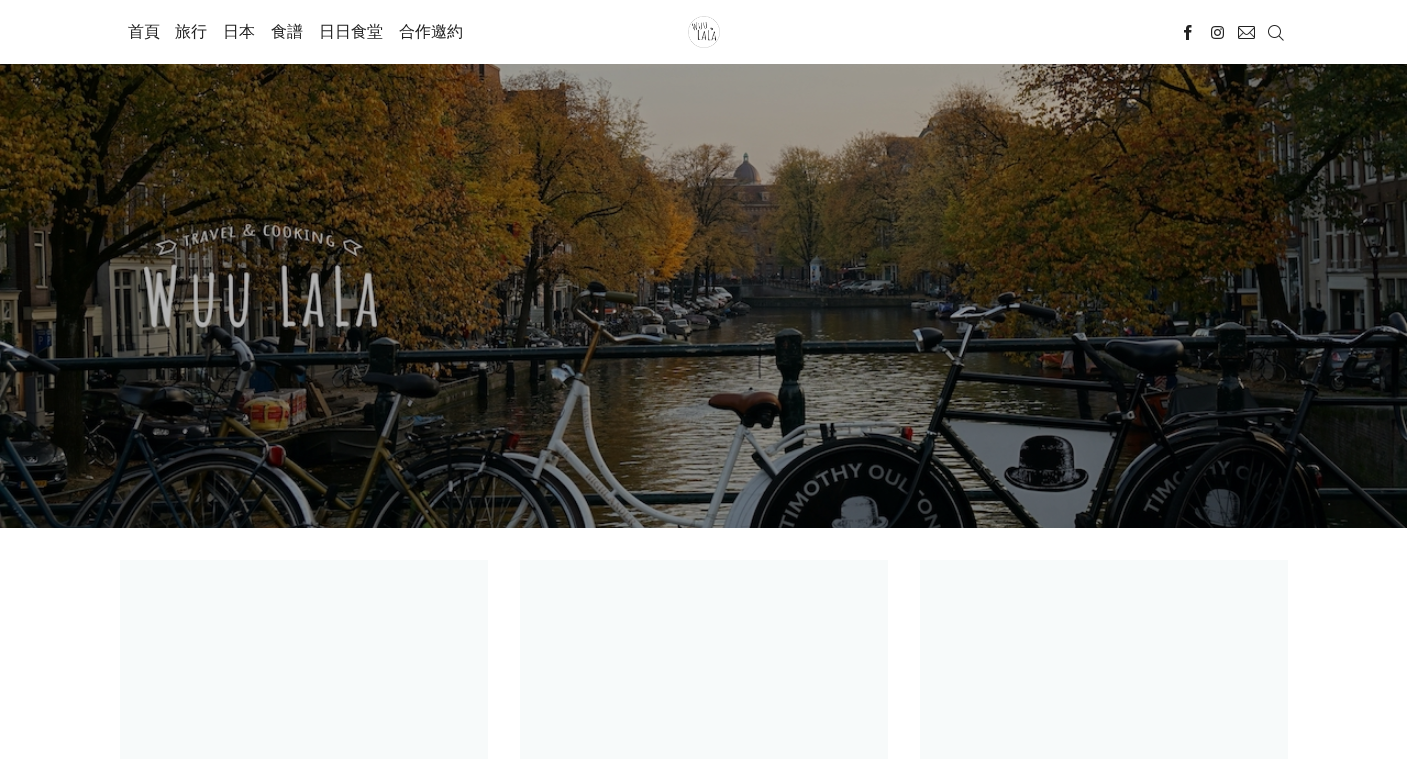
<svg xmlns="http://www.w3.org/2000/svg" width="1407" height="759">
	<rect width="100%" height="100%" fill="#FFFFFF" />
	<g font-family="WenQuanYi Zen Hei" font-size="16" font-weight="500" fill="#222222">
		<text x="128" y="37">首頁</text>
		<text x="175" y="37">旅行</text>
		<text x="223" y="37">日本</text>
		<text x="271" y="37">食譜</text>
		<text x="319" y="37">日日食堂</text>
		<text x="399" y="37">合作邀約</text>
	</g>
	<image x="1184" y="25" width="8" height="15" href="assets/img1.png" />
	<image x="1211" y="26" width="13" height="13" href="assets/img2.png" />
	<image x="1238" y="26" width="17" height="13" href="assets/img3.png" />
	<image x="1268" y="25" width="16" height="16" href="assets/img4.png" />
	<image x="688" y="16" width="32" height="32" href="assets/img5.png" />
	<image x="0" y="64" width="1407" height="464" href="assets/img6.png" />
	<rect x="120" y="560" width="368" height="199" fill="#F7FAFA" />
	<rect x="520" y="560" width="368" height="199" fill="#F7FAFA" />
	<rect x="920" y="560" width="368" height="199" fill="#F7FAFA" />
</svg>
